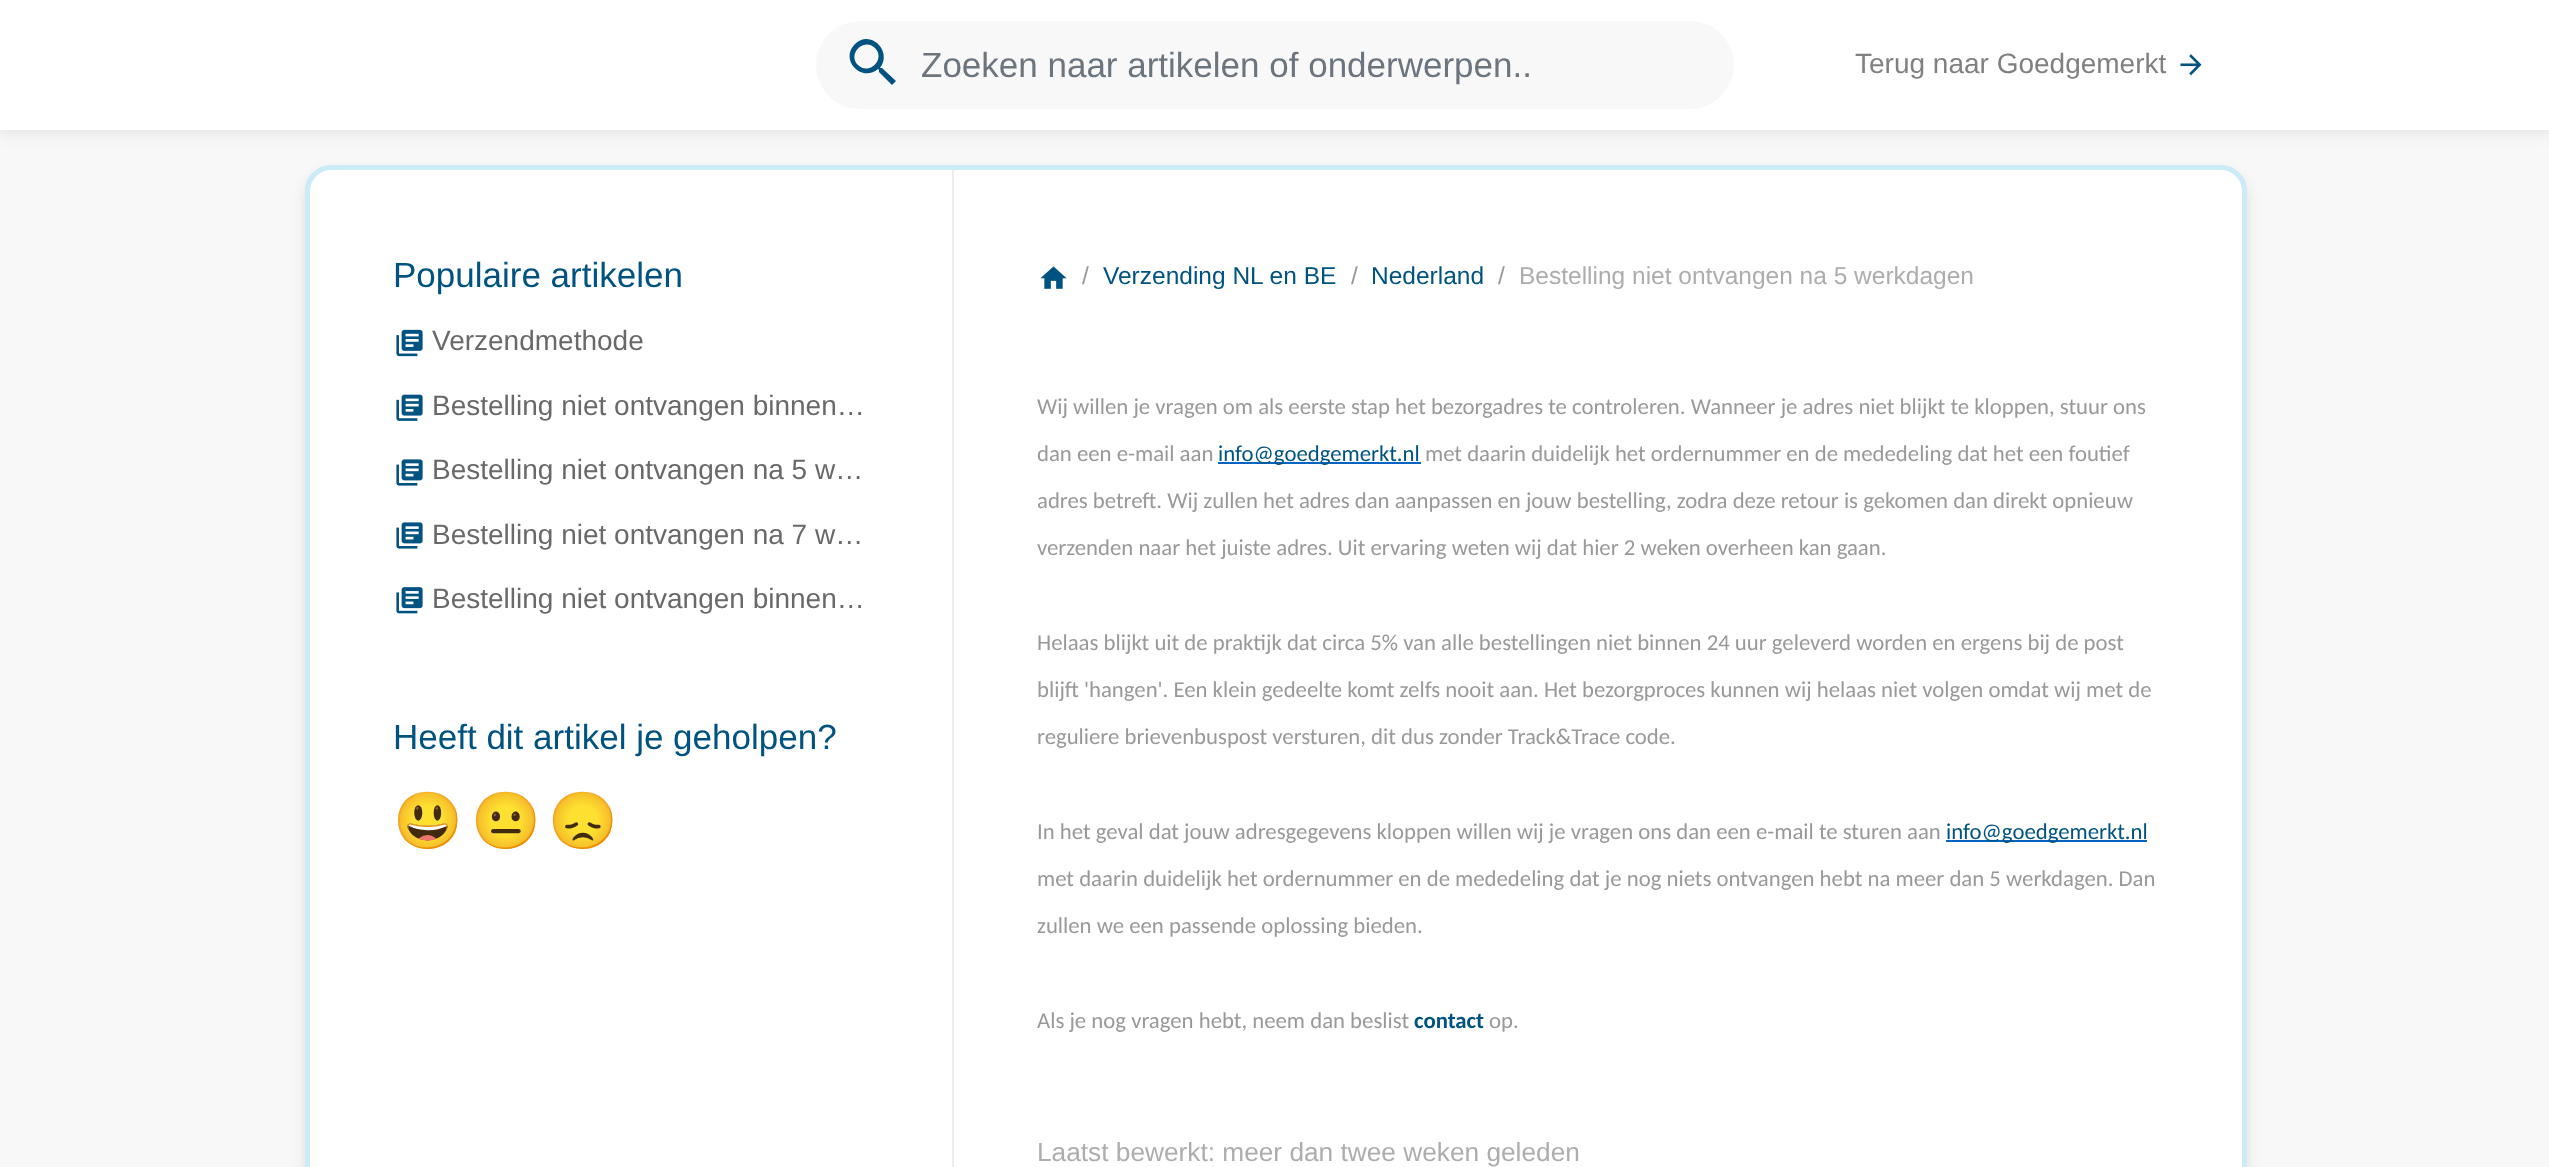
<svg xmlns="http://www.w3.org/2000/svg" width="2549" height="1167">
	<rect width="100%" height="100%" fill="#F8F8F8" />
	<rect x="-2" y="-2" width="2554" height="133" fill="#000000" fill-opacity="0.1" filter="blur(9px)" />
	<rect x="0" y="0" width="2549" height="130" fill="#FFFFFF" />
	<rect x="816" y="21" width="918" height="88" rx="44" fill="#F8F8F8" />
	<path d="M858 65C869 76 886 59 875 48C864 37 847 54 858 65ZM882 68L896 81L892 85L879 72V70L878 69C862 83 839 60 855 44C870 29 893 51 880 68Z" fill="#005380" />
	<text x="921" y="77" font-family="Liberation Sans" font-size="35" fill="#6C757D">Zoeken naar artikelen of onderwerpen..</text>
	<text x="1855" y="73" font-family="Liberation Sans" font-size="28" fill="#808080">Terug naar Goedgemerkt</text>
	<image x="2180" y="54" width="22" height="22" href="assets/img1.png" />
	<rect x="305" y="172" width="1942" height="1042" rx="26" fill="#000000" fill-opacity="0.1" filter="blur(7px)" />
	<rect x="305" y="165" width="1942" height="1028" rx="26" fill="#FFFFFF" />
	<rect x="307.5" y="167.5" width="1937" height="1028" rx="23.5" fill="none" stroke="#009DE0" stroke-opacity="0.2" stroke-width="5" />
	<rect x="952" y="170" width="2" height="997" fill="#EDEDED" />
	<text x="393" y="287" font-family="Liberation Sans" font-size="35" fill="#005380">Populaire artikelen</text>
	<image x="396" y="329" width="27" height="28" href="assets/img2.png" />
	<text x="432" y="350" font-family="Liberation Sans" font-size="28" fill="#696969">Verzendmethode</text>
	<image x="396" y="394" width="27" height="27" href="assets/img3.png" />
	<text x="432" y="415" font-family="Liberation Sans" font-size="28" fill="#696969">Bestelling niet ontvangen binnen…</text>
	<image x="396" y="459" width="27" height="27" href="assets/img4.png" />
	<text x="432" y="479" font-family="Liberation Sans" font-size="28" fill="#696969">Bestelling niet ontvangen na 5 w…</text>
	<image x="396" y="522" width="27" height="27" href="assets/img4.png" />
	<text x="432" y="544" font-family="Liberation Sans" font-size="28" fill="#696969">Bestelling niet ontvangen na 7 w…</text>
	<image x="396" y="587" width="27" height="27" href="assets/img5.png" />
	<text x="432" y="608" font-family="Liberation Sans" font-size="28" fill="#696969">Bestelling niet ontvangen binnen…</text>
	<text x="393" y="749" font-family="Liberation Sans" font-size="35" fill="#005380">Heeft dit artikel je geholpen?</text>
	<g font-family="Noto Color Emoji" font-size="56" fill="#999999">
		<text x="393" y="840">😃</text>
		<text x="471" y="840">😐</text>
		<text x="548" y="840">😞</text>
	</g>
	<image x="1040" y="266" width="27" height="23" href="assets/img6.png" />
	<text x="1082" y="284" font-family="Liberation Sans" font-size="24.5" fill="#999999">/</text>
	<text x="1103" y="284" font-family="Liberation Sans" font-size="24.5" fill="#005380">Verzending NL en BE</text>
	<text x="1351" y="284" font-family="Liberation Sans" font-size="24.5" fill="#999999">/</text>
	<text x="1371" y="284" font-family="Liberation Sans" font-size="24.5" fill="#005380">Nederland</text>
	<text x="1498" y="284" font-family="Liberation Sans" font-size="24.5" fill="#999999">/</text>
	<text x="1519" y="284" font-family="Liberation Sans" font-size="24.5" fill="#ADADAD">Bestelling niet ontvangen na 5 werkdagen</text>
	<g font-family="Carlito" font-size="22.75" fill="#999999">
		<text x="1037" y="414">Wij willen je vragen om als eerste stap het bezorgadres te controleren. Wanneer je adres niet blijkt te kloppen, stuur ons</text>
		<text x="1037" y="461">dan een e-mail aan</text>
	</g>
	<rect x="1218" y="462" width="203" height="2" fill="#0563C1" />
	<text x="1218" y="461" font-family="Carlito" font-size="22.75" fill="#005380">info@goedgemerkt.nl</text>
	<g font-family="Carlito" font-size="22.75" fill="#999999">
		<text x="1425" y="461">met daarin duidelijk het ordernummer en de mededeling dat het een foutief</text>
		<text x="1037" y="508">adres betreft. Wij zullen het adres dan aanpassen en jouw bestelling, zodra deze retour is gekomen dan direkt opnieuw</text>
		<text x="1037" y="555">verzenden naar het juiste adres. Uit ervaring weten wij dat hier 2 weken overheen kan gaan.</text>
		<text x="1037" y="650">Helaas blijkt uit de praktijk dat circa 5% van alle bestellingen niet binnen 24 uur geleverd worden en ergens bij de post</text>
		<text x="1037" y="697">blijft 'hangen'. Een klein gedeelte komt zelfs nooit aan. Het bezorgproces kunnen wij helaas niet volgen omdat wij met de</text>
		<text x="1037" y="744">reguliere brievenbuspost versturen, dit dus zonder Track&amp;Trace code.</text>
		<text x="1037" y="839">In het geval dat jouw adresgegevens kloppen willen wij je vragen ons dan een e-mail te sturen aan</text>
	</g>
	<rect x="1946" y="840" width="201" height="2" fill="#0563C1" />
	<text x="1946" y="839" font-family="Carlito" font-size="22.75" fill="#005380">info@goedgemerkt.nl</text>
	<g font-family="Carlito" font-size="22.75" fill="#999999">
		<text x="1037" y="886">met daarin duidelijk het ordernummer en de mededeling dat je nog niets ontvangen hebt na meer dan 5 werkdagen. Dan</text>
		<text x="1037" y="933">zullen we een passende oplossing bieden.</text>
		<text x="1037" y="1028">Als je nog vragen hebt, neem dan beslist</text>
	</g>
	<text x="1414" y="1028" font-family="Carlito" font-size="22.75" font-weight="700" fill="#005380">contact</text>
	<text x="1489" y="1028" font-family="Carlito" font-size="22.75" fill="#999999">op.</text>
	<text x="1037" y="1161" font-family="Liberation Sans" font-size="26.25" fill="#ADADAD">Laatst bewerkt: meer dan twee weken geleden</text>
</svg>
